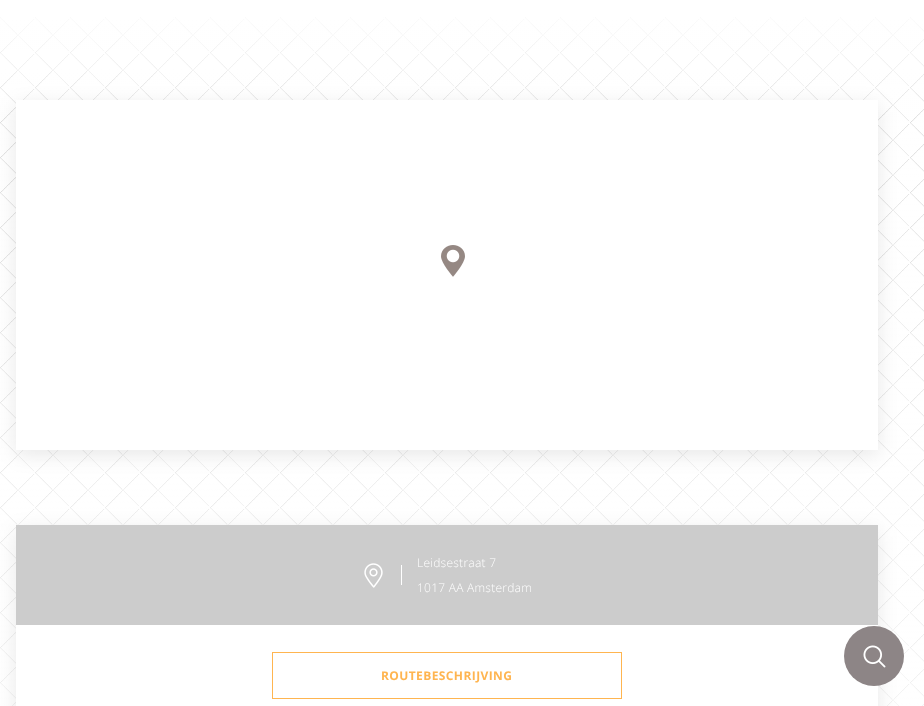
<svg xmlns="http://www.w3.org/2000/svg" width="924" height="706">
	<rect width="100%" height="100%" fill="#FFFFFF" />
	<image x="0" y="17" width="924" height="689" href="assets/img1.png" />
	<rect x="16" y="105" width="862" height="350" fill="#000000" fill-opacity="0.09" filter="blur(10px)" />
	<rect x="16" y="100" width="862" height="350" fill="#FFFFFF" />
	<image x="441" y="245" width="24" height="32" href="assets/img2.png" />
	<rect x="16" y="530" width="862" height="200" fill="#000000" fill-opacity="0.09" filter="blur(10px)" />
	<rect x="16" y="625" width="862" height="81" fill="#FFFFFF" />
	<rect x="16" y="525" width="862" height="100" fill="#CCCCCC" />
	<image x="364" y="563" width="19" height="25" href="assets/img3.png" />
	<rect x="401" y="565" width="1" height="20" fill="#FFFFFF" />
	<g font-family="Open Sans" font-size="12" font-weight="300" letter-spacing="0.25" fill="#FFFFFF">
		<text x="417" y="567">Leidsestraat 7</text>
		<text x="417" y="592">1017 AA Amsterdam</text>
	</g>
	<rect x="272.5" y="652.5" width="349" height="46" fill="none" stroke="#FFB550" />
	<text x="381" y="680" font-family="Open Sans" font-size="12" font-weight="700" letter-spacing="0.4" fill="#FFB550">ROUTEBESCHRIJVING</text>
	<circle cx="874" cy="656" r="30" fill="#8D8586" />
	<image x="863" y="645" width="23" height="23" href="assets/img4.png" />
</svg>
